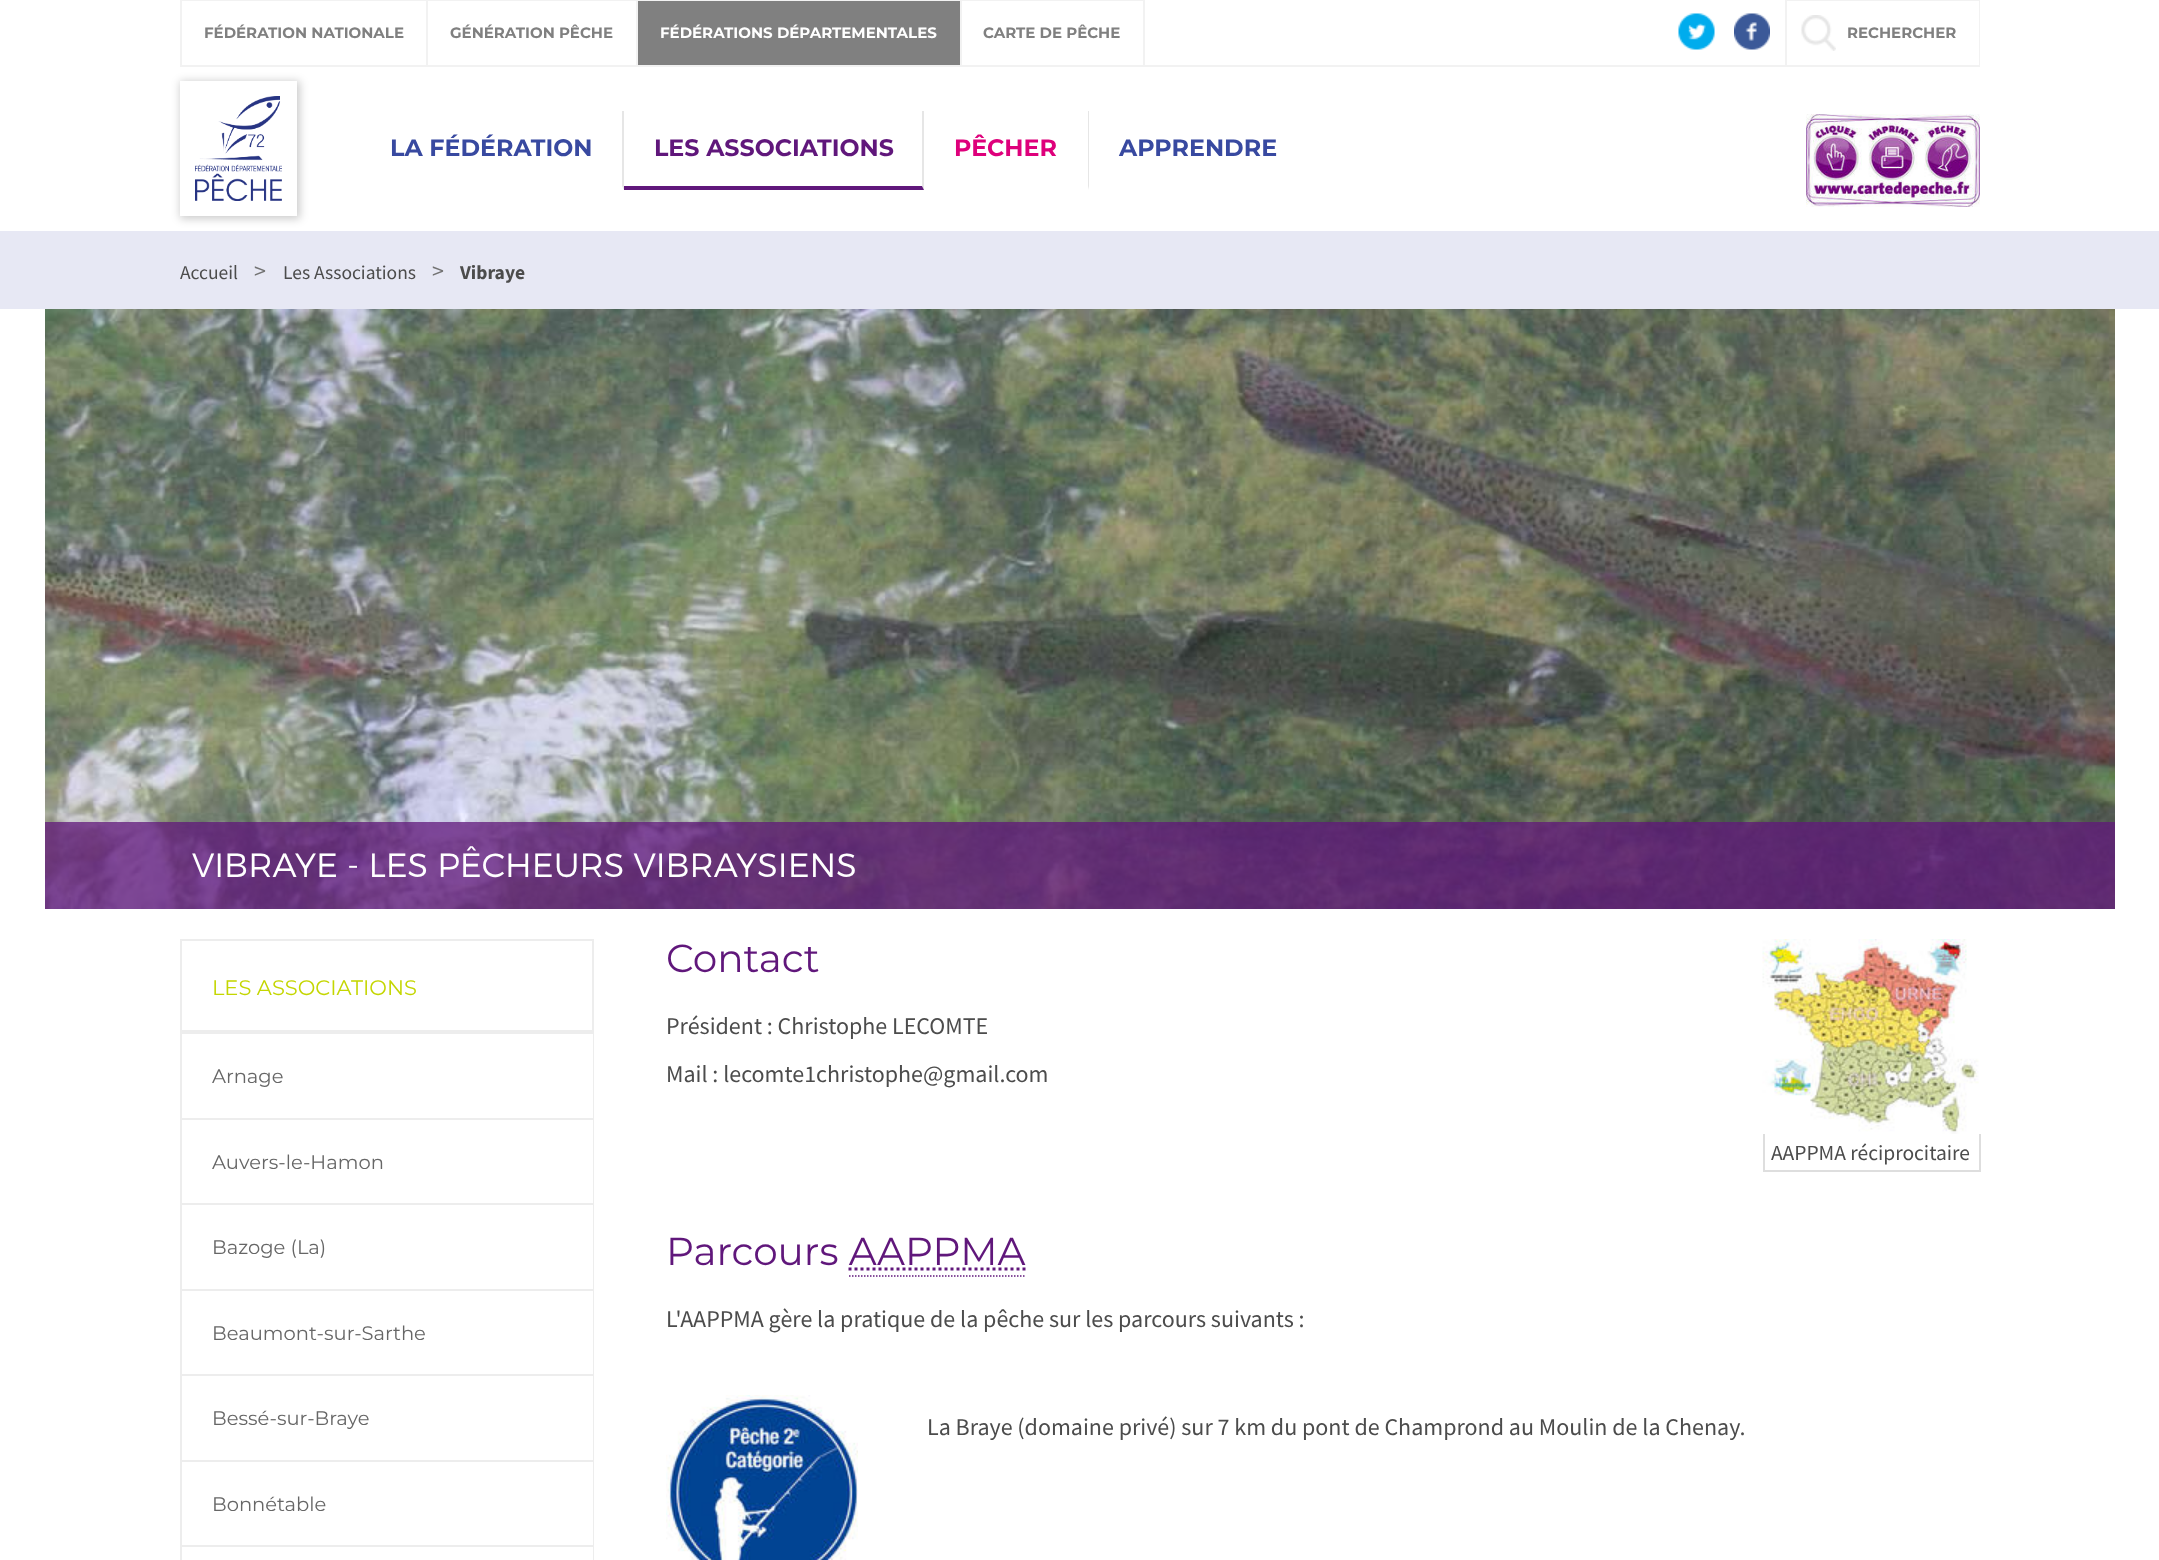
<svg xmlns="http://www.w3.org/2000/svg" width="2159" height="1560">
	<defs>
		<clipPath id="clip1"><path d="M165 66H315V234H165ZM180 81H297V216H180Z" clip-rule="evenodd" /></clipPath>
	</defs>
	<rect width="100%" height="100%" fill="#FFFFFF" />
	<rect x="180" y="65" width="1800" height="2" fill="#F2F2F2" />
	<image x="1678" y="13" width="37" height="37" href="assets/img1.png" />
	<image x="1734" y="13" width="36" height="37" href="assets/img2.png" />
	<rect x="180" y="0" width="965" height="1" fill="#F2F2F2" />
	<rect x="180" y="0" width="2" height="65" fill="#F2F2F2" />
	<text x="204" y="38" font-family="Montserrat" font-size="15" font-weight="700" fill="#808080">FÉDÉRATION NATIONALE</text>
	<rect x="426" y="0" width="2" height="65" fill="#F2F2F2" />
	<text x="450" y="38" font-family="Montserrat" font-size="15" font-weight="700" fill="#808080">GÉNÉRATION PÊCHE</text>
	<rect x="638" y="1" width="322" height="64" fill="#808080" />
	<rect x="636" y="0" width="2" height="65" fill="#F2F2F2" />
	<text x="660" y="38" font-family="Montserrat" font-size="15" font-weight="700" fill="#FFFFFF">FÉDÉRATIONS DÉPARTEMENTALES</text>
	<rect x="1143" y="0" width="2" height="65" fill="#F2F2F2" />
	<rect x="960" y="0" width="2" height="65" fill="#F2F2F2" />
	<text x="983" y="38" font-family="Montserrat" font-size="15" font-weight="700" fill="#808080">CARTE DE PÊCHE</text>
	<image x="1801" y="15" width="35" height="36" href="assets/img3.png" />
	<rect x="1785" y="0" width="195" height="1" fill="#F2F2F2" />
	<rect x="1979" y="0" width="1" height="65" fill="#F2F2F2" />
	<rect x="1785" y="0" width="2" height="65" fill="#F2F2F2" />
	<text x="1847" y="38" font-family="Montserrat" font-size="15" font-weight="700" fill="#808080">RECHERCHER</text>
	<rect x="0" y="231" width="2159" height="78" fill="#E7E8F4" />
	<g clip-path="url(#clip1)">
		<rect x="180" y="81" width="120" height="138" fill="#000000" fill-opacity="0.2" filter="blur(4.5px)" />
	</g>
	<image x="195" y="96" width="87" height="105" href="assets/img4.png" />
	<path d="M624 111V190L622 186V111Z" fill="#E6E6E6" />
	<text x="390" y="156" font-family="Montserrat" font-size="23.75" font-weight="700" fill="#3849A0">LA FÉDÉRATION</text>
	<path d="M924 111V190L922 186V111Z" fill="#E6E6E6" />
	<path d="M924 190H624V186H922Z" fill="#60177B" />
	<text x="654" y="156" font-family="Montserrat" font-size="23.75" font-weight="700" fill="#60177B">LES ASSOCIATIONS</text>
	<path d="M1089 111V190L1088 186V111Z" fill="#E6E6E6" />
	<text x="954" y="156" font-family="Montserrat" font-size="23.75" font-weight="700" fill="#DE007B">PÊCHER</text>
	<text x="1119" y="156" font-family="Montserrat" font-size="23.75" font-weight="700" fill="#3849A0">APPRENDRE</text>
	<image x="1806" y="114" width="174" height="93" href="assets/img5.png" />
	<text x="180" y="279" font-family="Source Sans Pro" font-size="19.5" fill="#4C4C4C">Accueil</text>
	<text x="254" y="279" font-family="Source Sans Pro" font-size="24" fill="#737373">&gt;</text>
	<text x="283" y="279" font-family="Source Sans Pro" font-size="19.5" fill="#4C4C4C">Les Associations</text>
	<text x="432" y="279" font-family="Source Sans Pro" font-size="24" fill="#737373">&gt;</text>
	<text x="460" y="279" font-family="Source Sans Pro" font-size="19.5" font-weight="700" fill="#4C4C4C">Vibraye</text>
	<image x="45" y="309" width="2070" height="600" href="assets/img6.png" />
	<rect x="45" y="822" width="2070" height="87" fill="#60177B" fill-opacity="0.75" />
	<text x="192" y="877" font-family="Montserrat" font-size="33.6" font-weight="300" fill="#FFFFFF">VIBRAYE - LES PÊCHEURS VIBRAYSIENS</text>
	<rect x="181" y="940" width="412" height="91" fill="none" stroke="#EDEDED" stroke-width="2" />
	<text x="212" y="995" font-family="Montserrat" font-size="21" fill="#C4D600">LES ASSOCIATIONS</text>
	<rect x="180" y="1032" width="414" height="2" fill="#EDEDED" />
	<rect x="593" y="1032" width="1" height="86" fill="#EDEDED" />
	<rect x="180" y="1032" width="2" height="86" fill="#EDEDED" />
	<text x="212" y="1083" font-family="Montserrat" font-size="19.5" fill="#666666">Arnage</text>
	<rect x="180" y="1118" width="414" height="2" fill="#EDEDED" />
	<rect x="593" y="1118" width="1" height="85" fill="#EDEDED" />
	<rect x="180" y="1118" width="2" height="85" fill="#EDEDED" />
	<text x="212" y="1169" font-family="Montserrat" font-size="19.5" fill="#666666">Auvers-le-Hamon</text>
	<rect x="180" y="1203" width="414" height="2" fill="#EDEDED" />
	<rect x="593" y="1203" width="1" height="86" fill="#EDEDED" />
	<rect x="180" y="1203" width="2" height="86" fill="#EDEDED" />
	<text x="212" y="1254" font-family="Montserrat" font-size="19.5" fill="#666666">Bazoge (La)</text>
	<rect x="180" y="1289" width="414" height="2" fill="#EDEDED" />
	<rect x="593" y="1289" width="1" height="85" fill="#EDEDED" />
	<rect x="180" y="1289" width="2" height="85" fill="#EDEDED" />
	<text x="212" y="1340" font-family="Montserrat" font-size="19.5" fill="#666666">Beaumont-sur-Sarthe</text>
	<rect x="180" y="1374" width="414" height="2" fill="#EDEDED" />
	<rect x="593" y="1374" width="1" height="86" fill="#EDEDED" />
	<rect x="180" y="1374" width="2" height="86" fill="#EDEDED" />
	<text x="212" y="1425" font-family="Montserrat" font-size="19.5" fill="#666666">Bessé-sur-Braye</text>
	<rect x="180" y="1460" width="414" height="2" fill="#EDEDED" />
	<rect x="593" y="1460" width="1" height="85" fill="#EDEDED" />
	<rect x="180" y="1460" width="2" height="85" fill="#EDEDED" />
	<text x="212" y="1511" font-family="Montserrat" font-size="19.5" fill="#666666">Bonnétable</text>
	<rect x="180" y="1545" width="414" height="2" fill="#EDEDED" />
	<rect x="593" y="1545" width="1" height="15" fill="#EDEDED" />
	<rect x="180" y="1545" width="2" height="15" fill="#EDEDED" />
	<text x="666" y="972" font-family="Montserrat" font-size="39" fill="#60177B">Contact</text>
	<g font-family="Source Sans Pro" font-size="24" fill="#4C4C4C">
		<text x="666" y="1034">Président : Christophe LECOMTE</text>
		<text x="666" y="1082">Mail : lecomte1christophe@gmail.com</text>
	</g>
	<image x="1762" y="939" width="217" height="195" href="assets/img7.png" />
	<rect x="1979" y="1134" width="2" height="38" fill="#DEDEDE" />
	<rect x="1763" y="1170" width="217" height="2" fill="#DEDEDE" />
	<rect x="1763" y="1134" width="2" height="38" fill="#DEDEDE" />
	<text x="1771" y="1160" font-family="Source Sans Pro" font-size="21.5" fill="#4C4C4C">AAPPMA réciprocitaire</text>
	<text x="666" y="1265" font-family="Montserrat" font-size="39" fill="#60177B">Parcours AAPPMA</text>
	<path d="M848.5 1269H1025.5" fill="none" stroke="#60177B" stroke-width="3" stroke-dasharray="3 3" />
	<path d="M849 1276H1026" fill="none" stroke="#60177B" stroke-width="1.5" stroke-dasharray="1.5 1.5" />
	<text x="666" y="1327" font-family="Source Sans Pro" font-size="24" fill="#4C4C4C">L'AAPPMA gère la pratique de la pêche sur les parcours suivants :</text>
	<image x="666" y="1395" width="192" height="165" href="assets/img8.png" />
	<text x="927" y="1435" font-family="Source Sans Pro" font-size="24" fill="#4C4C4C">La Braye (domaine privé) sur 7 km du pont de Champrond au Moulin de la Chenay.</text>
</svg>
